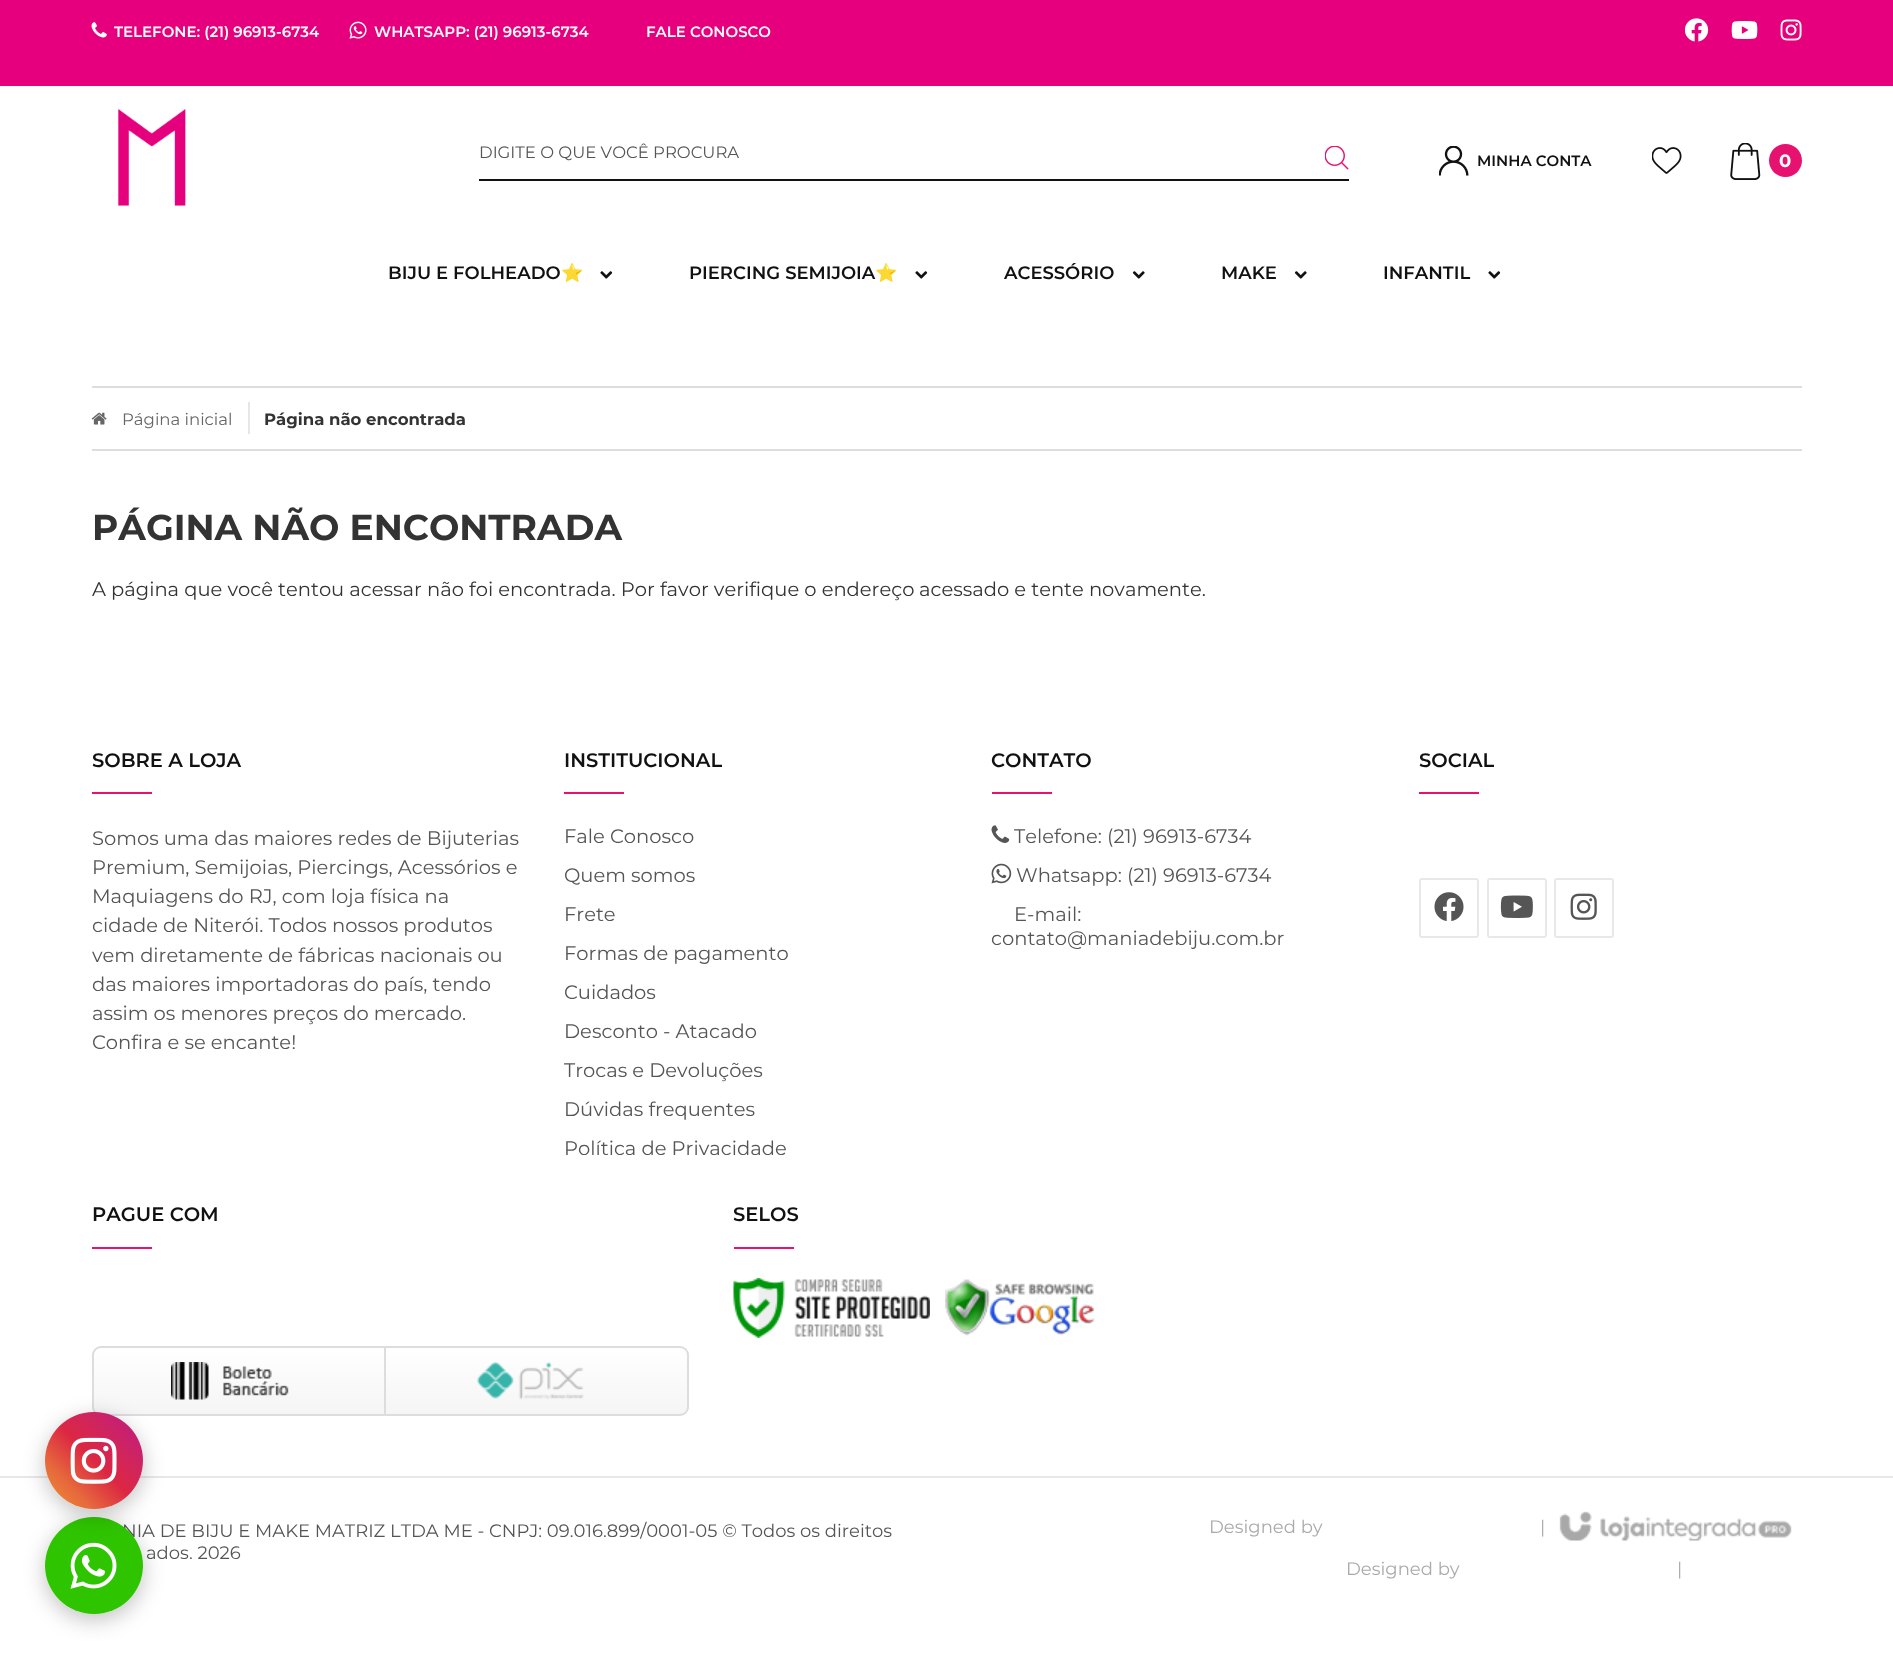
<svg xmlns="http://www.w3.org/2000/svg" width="1893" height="1658">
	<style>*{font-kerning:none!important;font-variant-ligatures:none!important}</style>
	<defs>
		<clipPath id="clip1"><rect x="92" y="1346" width="597" height="70" rx="9" /></clipPath>
		<linearGradient id="g1" gradientUnits="userSpaceOnUse" x1="390" y1="1347" x2="390" y2="1415"><stop offset="0" stop-color="#FFFFFF" /><stop offset="1" stop-color="#F5F5F5" /></linearGradient>
		<clipPath id="clip2"><path d="M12 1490H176V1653H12ZM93.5 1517H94.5C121.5 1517 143 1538.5 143 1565.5C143 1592.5 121.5 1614 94.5 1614H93.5C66.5 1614 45 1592.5 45 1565.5C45 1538.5 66.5 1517 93.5 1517Z" clip-rule="evenodd" /></clipPath>
		<linearGradient id="g2" gradientUnits="userSpaceOnUse" x1="45" y1="1509" x2="143" y2="1412"><stop offset="0" stop-color="#F09433" /><stop offset="0.25" stop-color="#E6683C" /><stop offset="0.5" stop-color="#DC2743" /><stop offset="0.75" stop-color="#CC2366" /><stop offset="1" stop-color="#BC1888" /></linearGradient>
		<clipPath id="clip3"><path d="M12 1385H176V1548H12ZM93.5 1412H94.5C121.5 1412 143 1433.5 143 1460.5C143 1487.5 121.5 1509 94.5 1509H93.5C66.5 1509 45 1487.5 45 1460.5C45 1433.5 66.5 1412 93.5 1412Z" clip-rule="evenodd" /></clipPath>
	</defs>
	<rect width="100%" height="100%" fill="#FFFFFF" />
	<rect x="0" y="0" width="1893" height="86" fill="#E6007E" />
	<image x="91" y="22" width="16" height="16" href="assets/img1.png" />
	<text x="114" y="37" font-family="Montserrat" font-size="15" font-weight="600" fill="#FFFFFF">TELEFONE: (21) 96913-6734</text>
	<image x="349" y="21" width="18" height="18" href="assets/img2.png" />
	<g font-family="Montserrat" font-size="15" font-weight="600" fill="#FFFFFF">
		<text x="374" y="37">WHATSAPP: (21) 96913-6734</text>
		<text x="646" y="37">FALE CONOSCO</text>
	</g>
	<image x="1685" y="18" width="24" height="24" href="assets/img3.png" />
	<image x="1731" y="21" width="27" height="18" href="assets/img4.png" />
	<image x="1780" y="19" width="22" height="22" href="assets/img5.png" />
	<image x="118" y="108" width="68" height="98" href="assets/img6.png" />
	<rect x="479" y="179" width="870" height="2" fill="#111111" />
	<text x="479" y="158" font-family="Montserrat" font-size="16.5" fill="#555555">DIGITE O QUE VOCÊ PROCURA</text>
	<image x="1325" y="146" width="24" height="24" href="assets/img7.png" />
	<image x="1439" y="146" width="30" height="30" href="assets/img8.png" />
	<text x="1477" y="166" font-family="Montserrat" font-size="15" font-weight="600" fill="#111111">MINHA CONTA</text>
	<image x="1652" y="147" width="30" height="27" href="assets/img9.png" />
	<image x="1730" y="143" width="31" height="37" href="assets/img10.png" />
	<circle cx="1785.5" cy="160.5" r="16.5" fill="#E7126F" />
	<text x="1779" y="167" font-family="Montserrat" font-size="18" font-weight="700" fill="#FFFFFF">0</text>
	<text x="388" y="279" font-family="Montserrat" font-size="18" font-weight="600" fill="#111111">BIJU E FOLHEADO</text>
	<text x="561" y="279" font-family="Noto Color Emoji" font-size="18" font-weight="700" fill="#111111">⭐</text>
	<image x="600" y="271" width="13" height="8" href="assets/img11.png" />
	<text x="689" y="279" font-family="Montserrat" font-size="18" font-weight="600" fill="#111111">PIERCING SEMIJOIA</text>
	<text x="875" y="279" font-family="Noto Color Emoji" font-size="18" font-weight="700" fill="#111111">⭐</text>
	<image x="915" y="271" width="13" height="8" href="assets/img11.png" />
	<text x="1004" y="279" font-family="Montserrat" font-size="18" font-weight="600" fill="#111111">ACESSÓRIO</text>
	<image x="1132" y="271" width="13" height="8" href="assets/img12.png" />
	<text x="1221" y="279" font-family="Montserrat" font-size="18" font-weight="600" fill="#111111">MAKE</text>
	<image x="1294" y="271" width="13" height="8" href="assets/img12.png" />
	<text x="1383" y="279" font-family="Montserrat" font-size="18" font-weight="600" fill="#111111">INFANTIL</text>
	<image x="1488" y="271" width="13" height="8" href="assets/img11.png" />
	<rect x="92" y="386" width="1710" height="2" fill="#DDDDDD" />
	<rect x="92" y="449" width="1710" height="2" fill="#DDDDDD" />
	<image x="91" y="412" width="16" height="13" href="assets/img13.png" />
	<text x="122" y="425" font-family="Montserrat" font-size="16.5" fill="#666666">Página inicial</text>
	<rect x="248" y="402" width="2" height="32" fill="#E6E6E6" />
	<text x="264" y="425" font-family="Montserrat" font-size="16.5" font-weight="700" fill="#333333">Página não encontrada</text>
	<text x="92" y="540" font-family="Montserrat" font-size="36" font-weight="700" fill="#333333">PÁGINA NÃO ENCONTRADA</text>
	<text x="92" y="596" font-family="Montserrat" font-size="19.5" fill="#333333">A página que você tentou acessar não foi encontrada. Por favor verifique o endereço</text>
	<text x="919" y="596" font-family="Montserrat" font-size="19.5" fill="#333333">acessado e tente novamente.</text>
	<text x="92" y="767" font-family="Montserrat" font-size="19.5" font-weight="600" fill="#111111">SOBRE A LOJA</text>
	<rect x="92" y="792" width="60" height="2" fill="#E7126F" />
	<g font-family="Montserrat" font-size="19.5" fill="#555555">
		<text x="92" y="845">Somos uma das maiores redes de Bijuterias</text>
		<text x="92" y="874">Premium, Semijoias, Piercings, Acessórios e</text>
		<text x="92" y="903">Maquiagens do RJ, com loja física na</text>
		<text x="92" y="932">cidade de Niterói. Todos nossos produtos</text>
		<text x="92" y="962">vem diretamente de fábricas nacionais ou</text>
		<text x="92" y="991">das maiores importadoras do país, tendo</text>
		<text x="92" y="1020">assim os menores preços do mercado.</text>
		<text x="92" y="1049">Confira e se encante!</text>
	</g>
	<text x="564" y="767" font-family="Montserrat" font-size="19.5" font-weight="600" fill="#111111">INSTITUCIONAL</text>
	<rect x="564" y="792" width="60" height="2" fill="#E7126F" />
	<g font-family="Montserrat" font-size="19.5" fill="#555555">
		<text x="564" y="843">Fale Conosco</text>
		<text x="564" y="882">Quem somos</text>
		<text x="564" y="921">Frete</text>
		<text x="564" y="960">Formas de pagamento</text>
		<text x="564" y="999">Cuidados</text>
		<text x="564" y="1038">Desconto - Atacado</text>
		<text x="564" y="1077">Trocas e Devoluções</text>
		<text x="564" y="1116">Dúvidas frequentes</text>
		<text x="564" y="1155">Política de Privacidade</text>
	</g>
	<text x="991" y="767" font-family="Montserrat" font-size="19.5" font-weight="600" fill="#111111">CONTATO</text>
	<rect x="992" y="792" width="60" height="2" fill="#E7126F" />
	<image x="991" y="825" width="19" height="18" href="assets/img14.png" />
	<text x="1014" y="843" font-family="Montserrat" font-size="19.5" fill="#555555">Telefone: (21) 96913-6734</text>
	<image x="991" y="863" width="21" height="21" href="assets/img15.png" />
	<g font-family="Montserrat" font-size="19.5" fill="#555555">
		<text x="1016" y="882">Whatsapp: (21) 96913-6734</text>
		<text x="1014" y="921">E-mail:</text>
		<text x="991" y="945">contato@maniadebiju.com.br</text>
	</g>
	<text x="92" y="1221" font-family="Montserrat" font-size="19.5" font-weight="600" fill="#111111">PAGUE COM</text>
	<rect x="92" y="1247" width="60" height="2" fill="#E7126F" />
	<g clip-path="url(#clip1)">
		<rect x="92" y="1347" width="597" height="68" fill="url(#g1)" />
	</g>
	<rect x="93" y="1347" width="595" height="68" rx="8" fill="none" stroke="#DDDDDD" stroke-width="2" />
	<image x="171" y="1362" width="118" height="38" href="assets/img16.png" />
	<rect x="384" y="1347" width="2" height="68" fill="#DDDDDD" />
	<image x="477" y="1362" width="107" height="38" href="assets/img17.png" />
	<text x="733" y="1221" font-family="Montserrat" font-size="19.5" font-weight="600" fill="#111111">SELOS</text>
	<rect x="734" y="1247" width="60" height="2" fill="#E7126F" />
	<image x="733" y="1278" width="197" height="60" href="assets/img18.png" />
	<image x="945" y="1279" width="150" height="57" href="assets/img19.png" />
	<text x="1419" y="767" font-family="Montserrat" font-size="19.5" font-weight="600" fill="#111111">SOCIAL</text>
	<rect x="1419" y="792" width="60" height="2" fill="#E7126F" />
	<rect x="1420" y="879" width="58" height="58" rx="2" fill="none" stroke="#E8E8E8" stroke-width="2" />
	<image x="1434" y="892" width="30" height="29" href="assets/img20.png" />
	<rect x="1488" y="879" width="58" height="58" rx="2" fill="none" stroke="#E8E8E8" stroke-width="2" />
	<image x="1500" y="895" width="33" height="23" href="assets/img21.png" />
	<rect x="1555" y="879" width="58" height="58" rx="2" fill="none" stroke="#E8E8E8" stroke-width="2" />
	<image x="1570" y="893" width="27" height="27" href="assets/img22.png" />
	<rect x="0" y="1476" width="1893" height="2" fill="#E8E8E8" />
	<g font-family="Montserrat" font-size="18" fill="#555555">
		<text x="122" y="1537">NIA DE BIJU E MAKE MATRIZ LTDA ME - CNPJ: 09.016.899/0001-05 © Todos</text>
		<text x="800" y="1537">os direitos</text>
		<text x="146" y="1559">ados. 2026</text>
	</g>
	<g font-family="Montserrat" font-size="18" fill="#AAAAAA">
		<text x="1209" y="1533">Designed by</text>
		<text x="1540" y="1533">|</text>
	</g>
	<image x="1559" y="1511" width="233" height="30" href="assets/img23.png" />
	<g font-family="Montserrat" font-size="18" fill="#AAAAAA">
		<text x="1346" y="1575">Designed by</text>
		<text x="1677" y="1575">|</text>
	</g>
	<rect x="45" y="1517" width="98" height="97" rx="48.5" fill="#2FC400" />
	<g clip-path="url(#clip2)">
		<rect x="45" y="1523" width="98" height="97" rx="48.5" fill="#000000" fill-opacity="0.24" filter="blur(10.5px)" />
	</g>
	<rect x="45" y="1412" width="98" height="97" rx="48.5" fill="url(#g2)" />
	<image x="70" y="1542" width="47" height="47" href="assets/img25.png" />
	<g clip-path="url(#clip3)">
		<rect x="45" y="1418" width="98" height="97" rx="48.5" fill="#000000" fill-opacity="0.24" filter="blur(10.5px)" />
	</g>
	<image x="70" y="1437" width="47" height="47" href="assets/img24.png" />
</svg>
